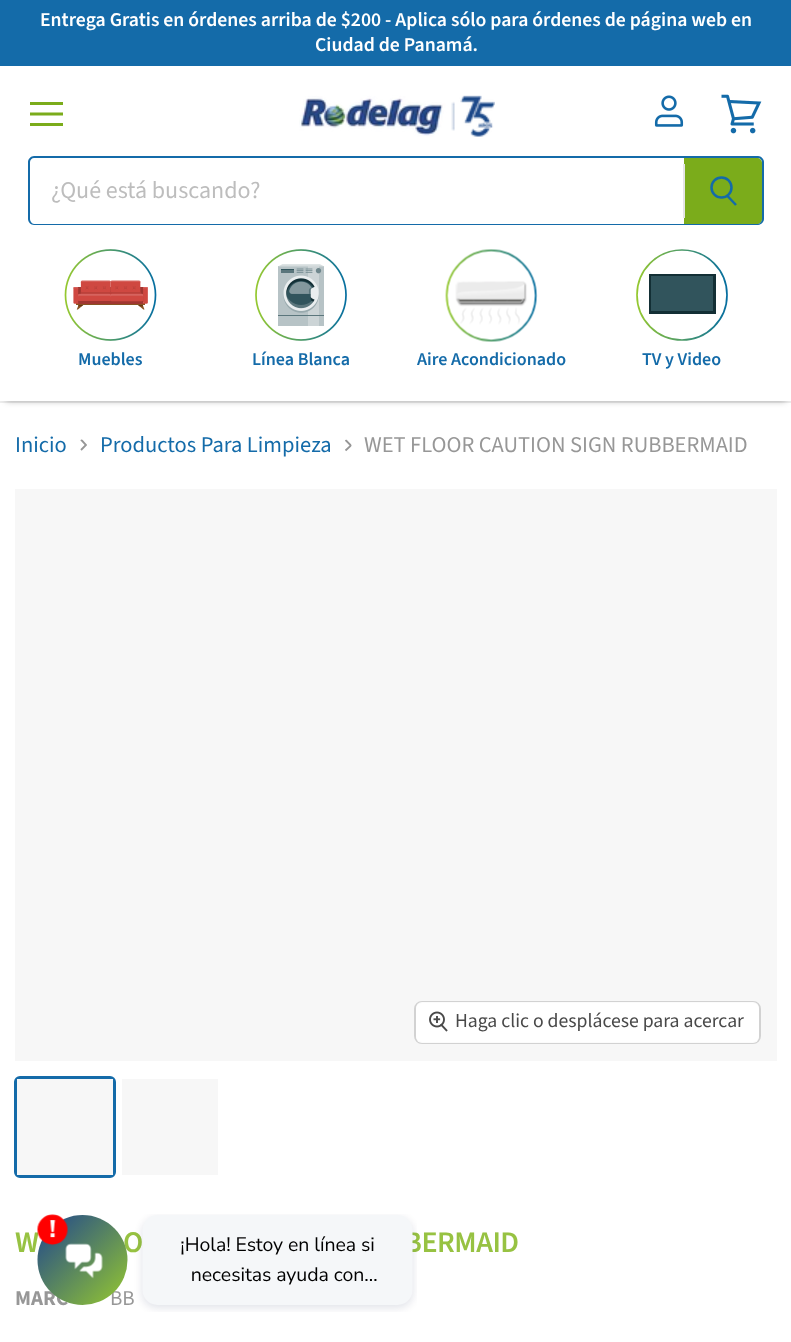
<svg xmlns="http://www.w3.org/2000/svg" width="791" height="1342">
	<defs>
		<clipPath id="clip1"><path d="M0 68H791V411H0ZM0 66H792V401H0Z" clip-rule="evenodd" /></clipPath>
		<linearGradient id="g1" gradientUnits="userSpaceOnUse" x1="636" y1="295" x2="728" y2="295"><stop offset="0" stop-color="#96C92F" /><stop offset="1" stop-color="#046DA1" /></linearGradient>
		<clipPath id="clip2"><path d="M79.5 451.5V439.5H87V451.5Z" /></clipPath>
		<clipPath id="clip3"><path d="M344 451.5V439.5H351.5V451.5Z" /></clipPath>
	</defs>
	<rect width="100%" height="100%" fill="#FFFFFF" />
	<rect x="0" y="0" width="791" height="66" fill="#146BA9" />
	<g font-family="Source Sans Pro" font-size="19.7" font-weight="600" fill="#FFFFFF">
		<text x="40" y="26">Entrega Gratis en órdenes arriba de $200 - Aplica sólo para órdenes de página web en</text>
		<text x="315" y="51">Ciudad de Panamá.</text>
	</g>
	<rect x="0" y="401" width="791" height="2" fill="#EDEDED" />
	<g clip-path="url(#clip1)">
		<rect x="6" y="78" width="780" height="323" fill="#000000" fill-opacity="0.3" filter="blur(3px)" />
	</g>
	<rect x="30" y="102" width="33" height="3" fill="#7BAC1B" />
	<path d="M61.5 114H31.5" fill="none" stroke="#7BAC1B" stroke-width="3" stroke-linecap="square" stroke-linejoin="round" />
	<rect x="30" y="123" width="33" height="3" fill="#7BAC1B" />
	<image x="654" y="95" width="30" height="32" href="assets/img1.png" />
	<image x="721" y="94" width="41" height="40" href="assets/img2.png" />
	<image x="299" y="95" width="196" height="42" href="assets/img3.png" />
	<path d="M34 156H684V225H34C31 225 28 222 28 219V162C28 159 31 156 34 156ZM34 158H684V224H34C32 224 30 221 30 219V162C30 160 32 158 34 158Z" fill="#146BA9" fill-rule="evenodd" />
	<text x="51" y="198" font-family="Source Sans Pro" font-size="24" fill="#BDBDBD">¿Qué está buscando?</text>
	<path d="M684 158H757C760 158 762 160 762 163V219C762 222 760 224 757 224H684Z" fill="#7BAC1B" />
	<path d="M684 156H758C761 156 764 159 764 162V219C764 222 761 225 758 225H684ZM684 158H758C760 158 762 160 762 162V219C762 221 760 224 758 224H684Z" fill="#146BA9" fill-rule="evenodd" />
	<rect x="683" y="164" width="2" height="54" fill="#E5E5E5" />
	<path d="M736 205L727.5 196" fill="none" stroke="#146BA9" stroke-width="2.5" />
	<circle cx="721.5" cy="187.5" r="10" fill="none" stroke="#146BA9" stroke-width="2.5" />
	<image x="64" y="249" width="93" height="92" href="assets/img4.png" />
	<text x="78" y="365" font-family="Source Sans Pro" font-size="18" font-weight="600" fill="#146BA9">Muebles</text>
	<image x="255" y="249" width="92" height="92" href="assets/img5.png" />
	<text x="252" y="365" font-family="Source Sans Pro" font-size="18" font-weight="600" fill="#146BA9">Línea Blanca</text>
	<image x="445" y="249" width="93" height="93" href="assets/img6.png" />
	<text x="417" y="365" font-family="Source Sans Pro" font-size="18" font-weight="600" fill="#146BA9">Aire Acondicionado</text>
	<rect x="651" y="276" width="62" height="35" fill="#31545C" />
	<path d="M713 276V311H651V276H713M716 274H649V314H716Z" fill="#132F35" />
	<circle cx="682" cy="295" r="45" fill="none" stroke="url(#g1)" stroke-width="1.7" />
	<text x="642" y="365" font-family="Source Sans Pro" font-size="18" font-weight="600" fill="#146BA9">TV y Video</text>
	<text x="15" y="452" font-family="Source Sans Pro" font-size="22.5" fill="#146BA9">Inicio</text>
	<g clip-path="url(#clip2)">
		<path d="M81 450L86 445L81 439.5" fill="none" stroke="#979797" stroke-width="1.9" />
	</g>
	<text x="100" y="452" font-family="Source Sans Pro" font-size="22.5" fill="#146BA9">Productos Para Limpieza</text>
	<g clip-path="url(#clip3)">
		<path d="M345.5 450.5L351 445.5L345.5 440" fill="none" stroke="#979797" stroke-width="1.9" />
	</g>
	<text x="364" y="452" font-family="Source Sans Pro" font-size="22.5" fill="#979797">WET FLOOR CAUTION SIGN RUBBERMAID</text>
	<rect x="15" y="489" width="762" height="572" fill="#F7F7F7" />
	<rect x="415" y="1002" width="345" height="41" rx="7" fill="none" stroke="#D2D2D2" stroke-width="2" />
	<rect x="416" y="1002" width="343" height="41" rx="6" fill="#FFFFFF" fill-opacity="0.9" />
	<image x="429" y="1011" width="19" height="21" href="assets/img7.png" />
	<text x="455" y="1027" font-family="Source Sans Pro" font-size="19.7" fill="#494949">Haga clic o desplácese para acercar</text>
	<rect x="15.5" y="1077.5" width="99" height="99" rx="4.5" fill="none" stroke="#146BA9" stroke-width="3" />
	<rect x="17" y="1079" width="96" height="96" fill="#F7F7F7" />
	<rect x="122" y="1079" width="96" height="96" fill="#F7F7F7" />
	<g font-family="Source Sans Pro" font-size="30" font-weight="600" letter-spacing="-0.5" fill="#97C242">
		<text x="15" y="1252">W</text>
		<text x="123" y="1252">O</text>
		<text x="404" y="1252">BERMAID</text>
	</g>
	<text x="15" y="1305" font-family="Source Sans Pro" font-size="21" font-weight="700" fill="#979797">MARC</text>
	<text x="110" y="1305" font-family="Source Sans Pro" font-size="21" fill="#979797">BB</text>
	<image x="37" y="1214" width="380" height="98" href="assets/img8.png" />
</svg>
